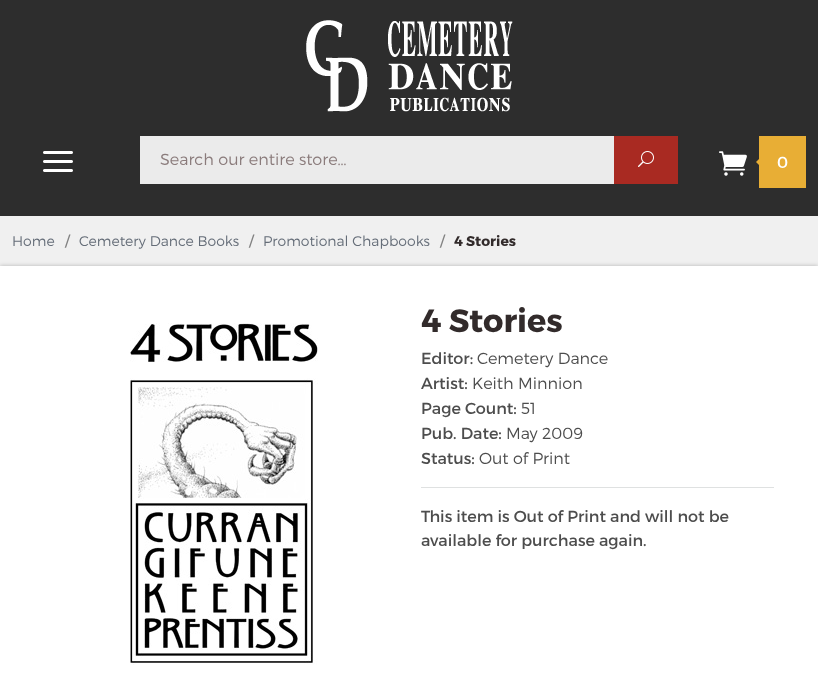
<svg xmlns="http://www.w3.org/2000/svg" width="818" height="685">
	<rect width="100%" height="100%" fill="#F0F0F0" />
	<rect x="0" y="0" width="818" height="216" fill="#2D2D2D" />
	<image x="306" y="20" width="207" height="92" href="assets/img1.png" />
	<image x="43" y="151" width="30" height="21" href="assets/img2.png" />
	<rect x="140" y="136" width="474" height="48" fill="#EBEBEB" />
	<text x="160" y="165" font-family="Montserrat" font-size="16" font-weight="300" fill="#8A7B7B">Search our entire store…</text>
	<rect x="614" y="136" width="64" height="48" fill="#A92A22" />
	<image x="638" y="151" width="16" height="16" href="assets/img3.png" />
	<image x="719" y="151" width="28" height="25" href="assets/img4.png" />
	<rect x="760" y="137" width="45" height="50" fill="none" stroke="#E8AE35" stroke-width="2" />
	<path d="M761 157V167L756 162Z" fill="#E8AE35" />
	<rect x="761" y="138" width="43" height="48" fill="#E8AE35" />
	<text x="777" y="168" font-family="Montserrat" font-size="16" fill="#FFFFFF">0</text>
	<text x="12" y="246" font-family="Montserrat" font-size="14" font-weight="300" fill="#656D78">Home</text>
	<text x="65" y="246" font-family="Montserrat" font-size="14" fill="#818181">/</text>
	<text x="79" y="246" font-family="Montserrat" font-size="14" font-weight="300" fill="#656D78">Cemetery Dance Books</text>
	<text x="249" y="246" font-family="Montserrat" font-size="14" fill="#818181">/</text>
	<text x="263" y="246" font-family="Montserrat" font-size="14" font-weight="300" fill="#656D78">Promotional Chapbooks</text>
	<text x="440" y="246" font-family="Montserrat" font-size="14" fill="#818181">/</text>
	<text x="454" y="246" font-family="Montserrat" font-size="14" font-weight="700" fill="#322B2B">4 Stories</text>
	<rect x="0" y="266" width="818" height="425" fill="#000000" fill-opacity="0.25" filter="blur(2px)" />
	<rect x="0" y="266" width="818" height="419" fill="#FFFFFF" />
	<image x="130" y="323" width="188" height="342" href="assets/img5.png" />
	<text x="421" y="332" font-family="Montserrat" font-size="32" font-weight="700" fill="#322B2B">4 Stories</text>
	<text x="421" y="364" font-family="Montserrat" font-size="16" fill="#4D4D4D">Editor:</text>
	<text x="477" y="364" font-family="Montserrat" font-size="16" font-weight="300" fill="#4D4D4D">Cemetery Dance</text>
	<text x="421" y="389" font-family="Montserrat" font-size="16" fill="#4D4D4D">Artist:</text>
	<text x="472" y="389" font-family="Montserrat" font-size="16" font-weight="300" fill="#4D4D4D">Keith Minnion</text>
	<text x="421" y="414" font-family="Montserrat" font-size="16" fill="#4D4D4D">Page Count:</text>
	<text x="521" y="414" font-family="Montserrat" font-size="16" font-weight="300" fill="#4D4D4D">51</text>
	<text x="421" y="439" font-family="Montserrat" font-size="16" fill="#4D4D4D">Pub. Date:</text>
	<text x="506" y="439" font-family="Montserrat" font-size="16" font-weight="300" fill="#4D4D4D">May 2009</text>
	<text x="421" y="464" font-family="Montserrat" font-size="16" fill="#4D4D4D">Status:</text>
	<text x="479" y="464" font-family="Montserrat" font-size="16" font-weight="300" fill="#4D4D4D">Out of Print</text>
	<rect x="421" y="487" width="353" height="1" fill="#DFE1E1" />
	<g font-family="Montserrat" font-size="16" fill="#4D4D4D">
		<text x="421" y="522">This item is Out of Print and will not be</text>
		<text x="421" y="546">available for purchase again.</text>
	</g>
</svg>
